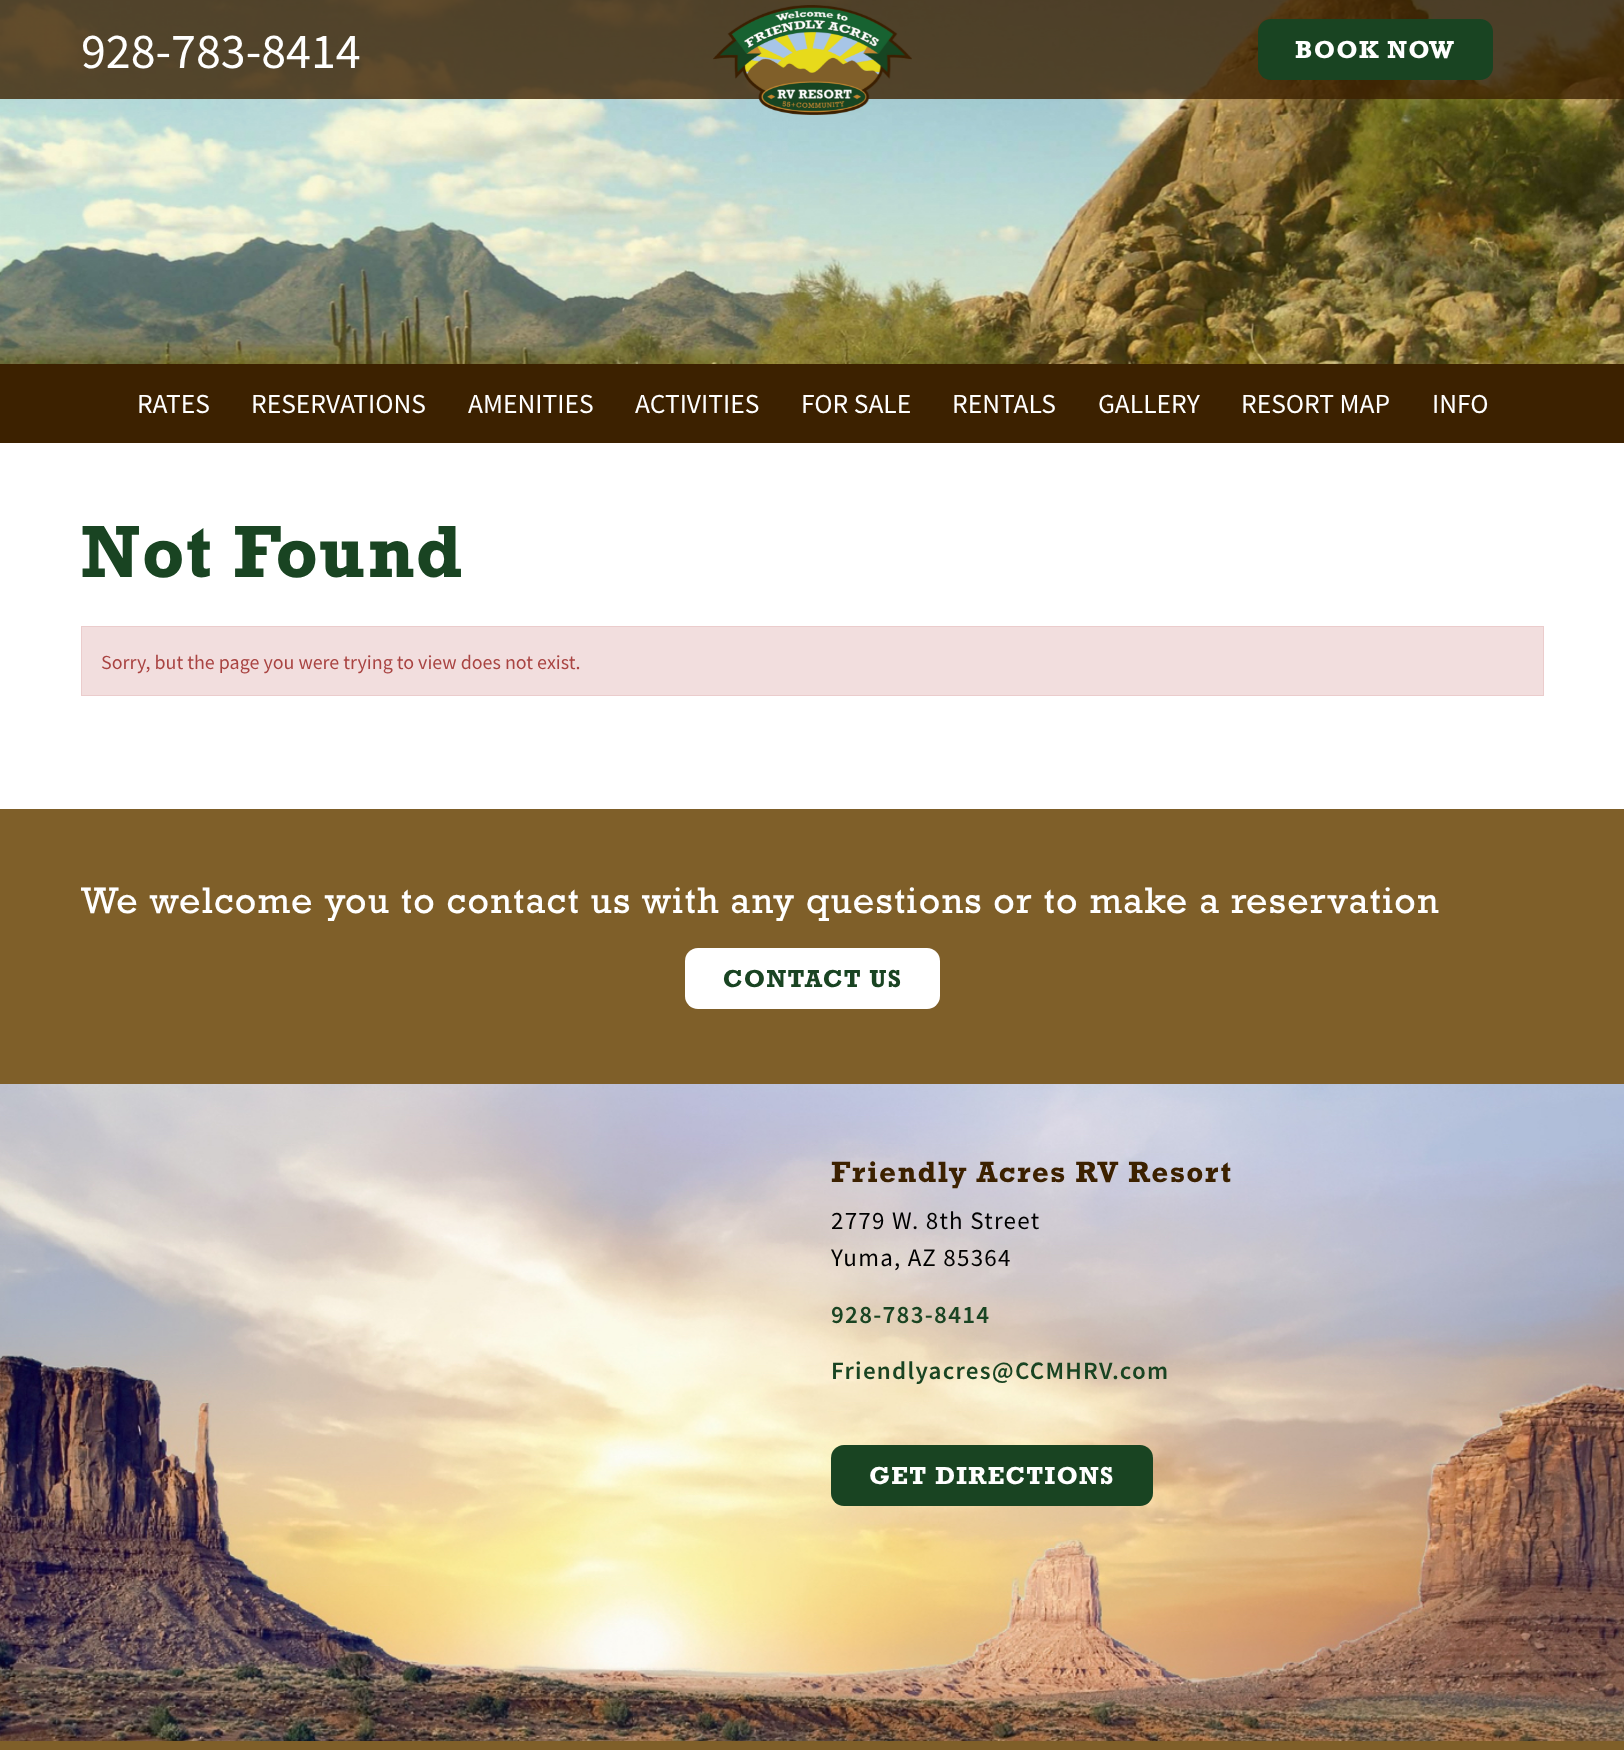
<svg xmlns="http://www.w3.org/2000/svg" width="1624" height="1750">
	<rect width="100%" height="100%" fill="#FFFFFF" />
	<image x="0" y="0" width="1624" height="364" href="assets/img1.png" />
	<rect x="0" y="0" width="1624" height="99" fill="#3C2100" fill-opacity="0.8" />
	<image x="713" y="5" width="199" height="110" href="assets/img2.png" />
	<text x="81" y="68" font-family="Source Sans Pro" font-size="50" fill="#FFFFFF">928-783-8414</text>
	<rect x="1258" y="19" width="235" height="61" rx="13" fill="#194422" />
	<text x="1295" y="58" font-family="Rockwell" font-size="25" font-weight="700" letter-spacing="1.25" fill="#FFFFFF">BOOK NOW</text>
	<rect x="0" y="364" width="1624" height="79" fill="#3C2100" />
	<g font-family="Source Sans Pro" font-size="27.5" fill="#FFFFFF">
		<text x="137" y="413">RATES</text>
		<text x="251" y="413">RESERVATIONS</text>
		<text x="468" y="413">AMENITIES</text>
		<text x="635" y="413">ACTIVITIES</text>
		<text x="801" y="413">FOR SALE</text>
		<text x="952" y="413">RENTALS</text>
		<text x="1098" y="413">GALLERY</text>
		<text x="1241" y="413">RESORT MAP</text>
		<text x="1432" y="413">INFO</text>
	</g>
	<text x="81" y="577" font-family="Rockwell" font-size="75" font-weight="700" letter-spacing="1.25" fill="#194422">Not Found</text>
	<rect x="81.5" y="626.5" width="1462" height="69" fill="#F2DEDE" stroke="#EBCCCC" />
	<text x="101" y="669" font-family="Source Sans Pro" font-size="20" fill="#A94442">Sorry, but the page you were trying to view does not exist.</text>
	<rect x="0" y="809" width="1624" height="275" fill="#7F5F29" />
	<text x="81" y="913" font-family="Rockwell" font-size="37.5" letter-spacing="1.25" fill="#FFFFFF">We welcome you to contact us with any questions or to make a reservation</text>
	<rect x="685" y="948" width="255" height="61" rx="13" fill="#FFFFFF" />
	<text x="723" y="987" font-family="Rockwell" font-size="25" font-weight="700" letter-spacing="1.25" fill="#194422">CONTACT US</text>
	<image x="0" y="1084" width="1624" height="657" href="assets/img3.png" />
	<text x="831" y="1182" font-family="Rockwell" font-size="30" font-weight="700" letter-spacing="1.25" fill="#3C2100">Friendly Acres RV Resort</text>
	<g font-family="Source Sans Pro" font-size="25" letter-spacing="1.25" fill="#000000">
		<text x="831" y="1229">2779 W. 8th Street</text>
		<text x="831" y="1266">Yuma, AZ 85364</text>
	</g>
	<g font-family="Source Sans Pro" font-size="25" font-weight="600" letter-spacing="1.25" fill="#194422">
		<text x="831" y="1323">928-783-8414</text>
		<text x="831" y="1379">Friendlyacres@CCMHRV.com</text>
	</g>
	<rect x="831" y="1445" width="322" height="61" rx="13" fill="#194422" />
	<text x="869" y="1484" font-family="Rockwell" font-size="25" font-weight="700" letter-spacing="1.25" fill="#FFFFFF">GET DIRECTIONS</text>
	<rect x="0" y="1741" width="1624" height="9" fill="#7F5F29" />
</svg>
